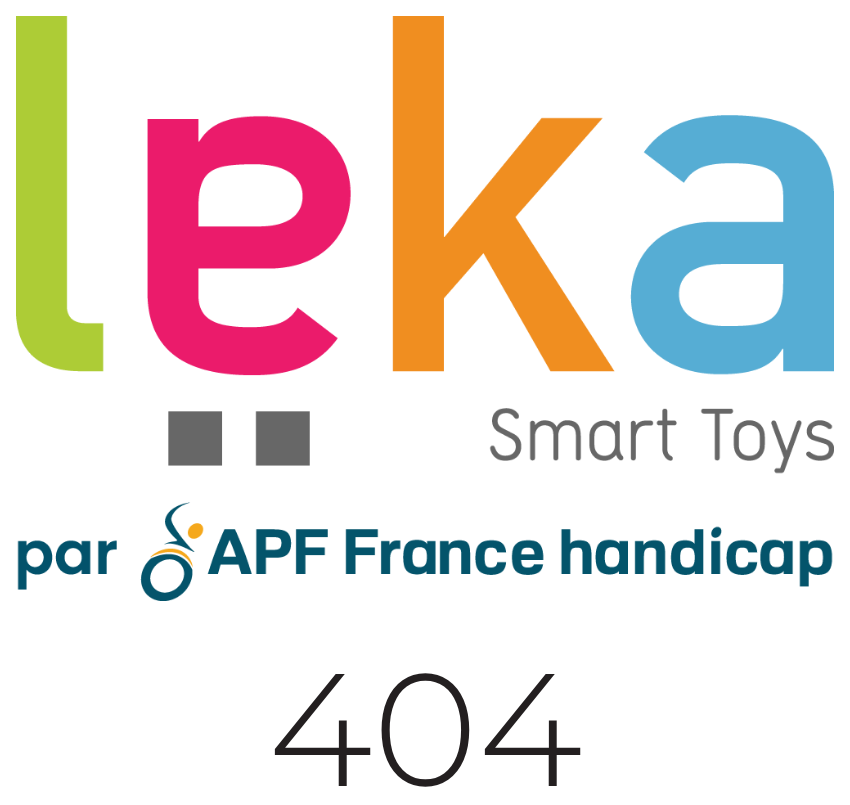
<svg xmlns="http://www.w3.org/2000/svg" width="850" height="805">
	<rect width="100%" height="100%" fill="#FFFFFF" />
	<image x="16" y="16" width="818" height="585" href="assets/img1.png" />
	<text x="268" y="786" font-family="Montserrat" font-size="160" font-weight="300" fill="#231F20">404</text>
</svg>
